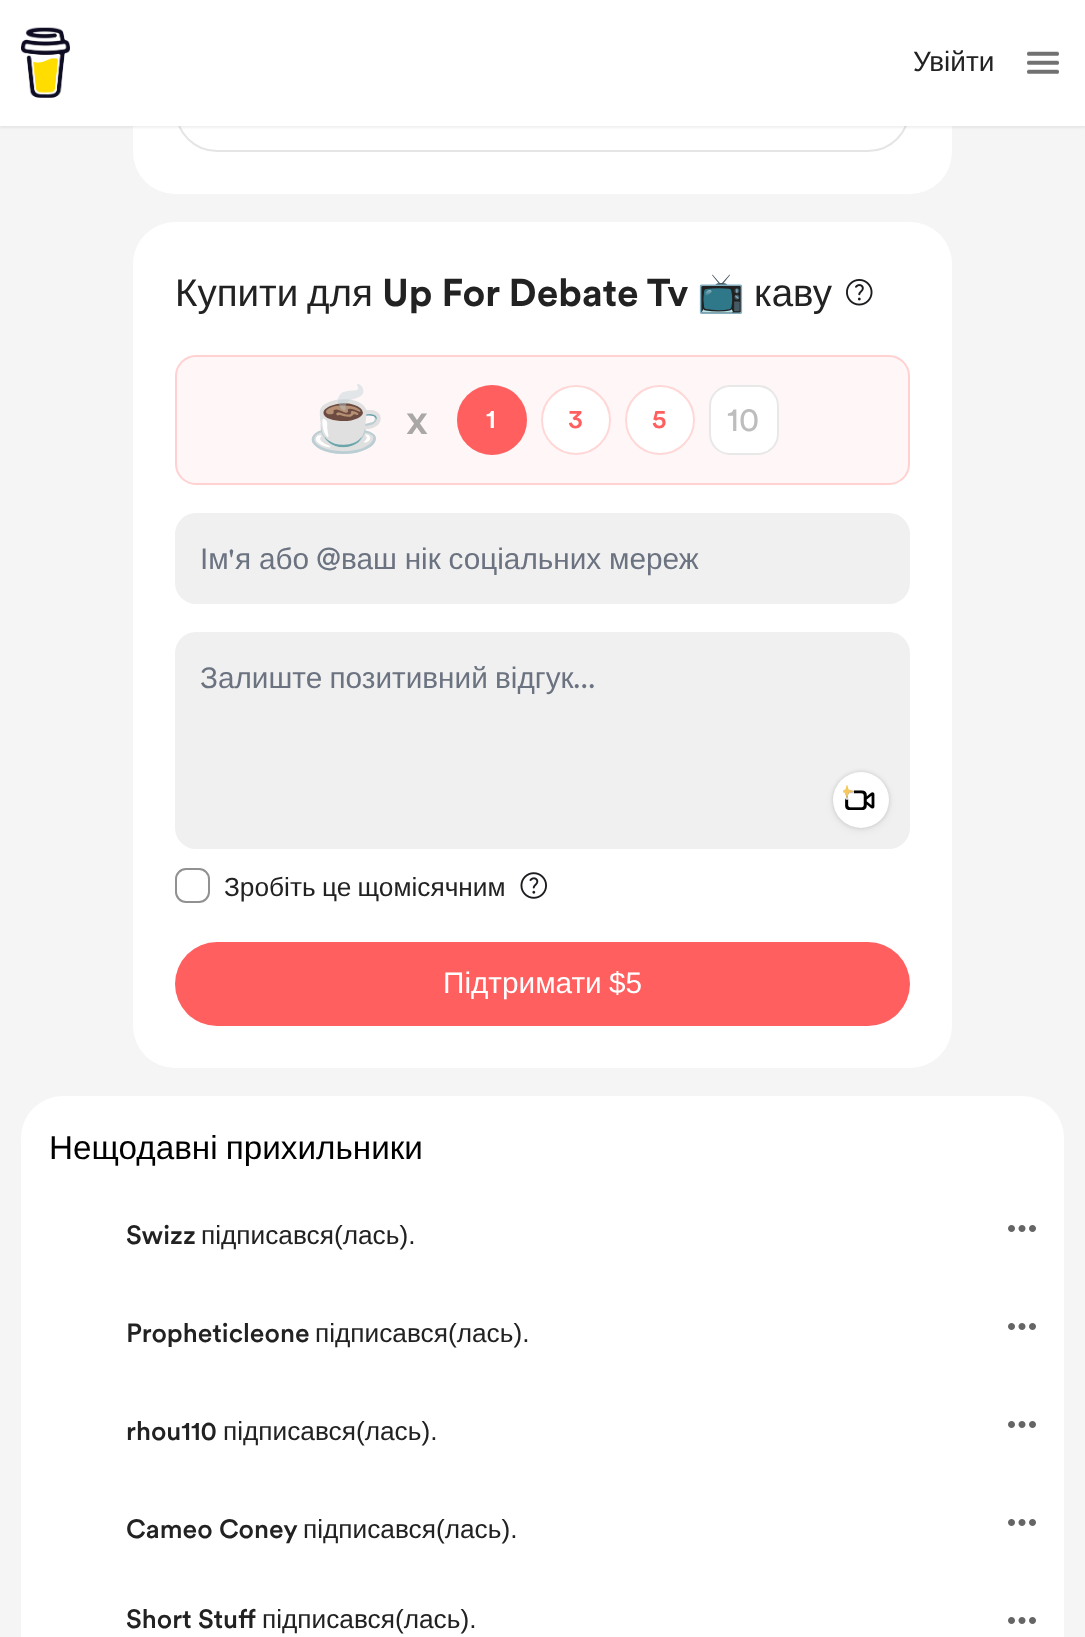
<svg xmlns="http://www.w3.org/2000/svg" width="1085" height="1637">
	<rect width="100%" height="100%" fill="#F5F5F5" />
	<rect x="133" y="-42" width="819" height="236" rx="42" fill="#FFFFFF" />
	<rect x="176" y="69" width="733" height="82" rx="41" fill="none" stroke="#E5E5E5" stroke-width="2" />
	<rect x="0" y="2" width="1085" height="126" fill="#000000" fill-opacity="0.06" filter="blur(1px)" />
	<rect x="0" y="0" width="1085" height="126" fill="#FFFFFF" />
	<image x="21" y="27" width="49" height="71" href="assets/img1.png" />
	<text x="913" y="71" font-family="Liberation Sans" font-size="28" fill="#222222">Увійти</text>
	<image x="1027" y="51" width="32" height="23" href="assets/img2.png" />
	<rect x="133" y="222" width="819" height="846" rx="42" fill="#FFFFFF" />
	<g font-family="Liberation Sans" font-size="38.5" fill="#222222">
		<text x="175" y="306">Купити</text>
		<text x="307" y="306">для</text>
	</g>
	<text x="382" y="306" font-family="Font" font-size="38.5" font-weight="700" fill="#222222">Up For Debate Tv</text>
	<text x="697" y="306" font-family="Noto Color Emoji" font-size="38.5" fill="#222222">📺</text>
	<text x="754" y="306" font-family="Liberation Sans" font-size="38.5" fill="#222222">каву</text>
	<image x="846" y="279" width="27" height="27" href="assets/img3.png" />
	<rect x="175" y="355" width="735" height="130" rx="21" fill="#FFF7F7" />
	<rect x="176" y="356" width="733" height="128" rx="20" fill="none" stroke="#FF5F5F" stroke-opacity="0.25" stroke-width="2" />
	<text x="307" y="441" font-family="Noto Color Emoji" font-size="63" fill="#000000">☕</text>
	<text x="406" y="434" font-family="Font" font-size="42" font-weight="500" fill="#AAA7A7">x</text>
	<circle cx="492" cy="420" r="35" fill="#FF5F5F" />
	<circle cx="492" cy="420" r="34" fill="none" stroke="#FF5F5F" stroke-opacity="0.25" stroke-width="2" />
	<text x="486" y="428" font-family="Font" font-size="26.25" font-weight="500" fill="#FFFFFF">1</text>
	<circle cx="576" cy="420" r="35" fill="#FFFFFF" />
	<circle cx="576" cy="420" r="34" fill="none" stroke="#FF5F5F" stroke-opacity="0.25" stroke-width="2" />
	<text x="568" y="428" font-family="Font" font-size="26.25" font-weight="500" fill="#FF5F5F">3</text>
	<circle cx="660" cy="420" r="35" fill="#FFFFFF" />
	<circle cx="660" cy="420" r="34" fill="none" stroke="#FF5F5F" stroke-opacity="0.25" stroke-width="2" />
	<text x="652" y="428" font-family="Font" font-size="26.25" font-weight="500" fill="#FF5F5F">5</text>
	<rect x="709" y="385" width="70" height="70" rx="21" fill="#FFFFFF" />
	<rect x="710" y="386" width="68" height="68" rx="20" fill="none" stroke="#222222" stroke-opacity="0.1" stroke-width="2" />
	<text x="727" y="431" font-family="Font" font-size="33.25" fill="#BDBDBD">10</text>
	<rect x="175" y="513" width="735" height="91" rx="21" fill="#F0F0F0" />
	<text x="200" y="569" font-family="Liberation Sans" font-size="29.75" fill="#6B7280">Ім</text>
	<text x="228" y="569" font-family="Font" font-size="29.75" fill="#6B7280">'</text>
	<text x="235" y="569" word-spacing="-0.5" font-family="Liberation Sans" font-size="29.75" fill="#6B7280">я або</text>
	<text x="316" y="569" font-family="Font" font-size="29.75" fill="#6B7280">@</text>
	<text x="341" y="569" word-spacing="-0.5" font-family="Liberation Sans" font-size="29.75" fill="#6B7280">ваш нік соціальних мереж</text>
	<rect x="175" y="632" width="735" height="217" rx="21" fill="#F0F0F0" />
	<text x="200" y="688" word-spacing="-1" font-family="Liberation Sans" font-size="29.75" fill="#6B7280">Залиште позитивний відгук</text>
	<text x="573" y="688" font-family="Font" font-size="29.75" fill="#6B7280">...</text>
	<rect x="833" y="775" width="56" height="56" rx="28" fill="#000000" fill-opacity="0.05" filter="blur(4.5px)" />
	<rect x="833" y="772" width="56" height="56" rx="28" fill="#000000" fill-opacity="0.15" filter="blur(2px)" />
	<circle cx="861" cy="800" r="28" fill="#FFFFFF" />
	<image x="845" y="790" width="30" height="20" href="assets/img5.png" />
	<image x="843" y="785" width="11" height="15" href="assets/img4.png" />
	<rect x="176" y="869" width="33" height="33" rx="10" fill="none" stroke="#919191" stroke-width="2" />
	<text x="224" y="896" word-spacing="-1" font-family="Liberation Sans" font-size="26.25" fill="#222222">Зробіть це щомісячним</text>
	<image x="520" y="872" width="27" height="27" href="assets/img6.png" />
	<rect x="175" y="942" width="735" height="84" rx="42" fill="#FF5F5F" />
	<text x="443" y="993" word-spacing="-1" font-family="Liberation Sans" font-size="29.75" fill="#FFFFFF">Підтримати $5</text>
	<rect x="21" y="1096" width="1043" height="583" rx="42" fill="#FFFFFF" />
	<text x="49" y="1159" word-spacing="-1" font-family="Liberation Sans" font-size="33.25" fill="#000000">Нещодавні прихильники</text>
	<text x="126" y="1244" font-family="Font" font-size="26.25" font-weight="500" fill="#222222">Swizz</text>
	<text x="201" y="1244" font-family="Liberation Sans" font-size="26.25" fill="#222222">підписався(лась).</text>
	<image x="1008" y="1225" width="28" height="7" href="assets/img7.png" />
	<text x="126" y="1342" font-family="Font" font-size="26.25" font-weight="500" fill="#222222">Propheticleone</text>
	<text x="315" y="1342" font-family="Liberation Sans" font-size="26.25" fill="#222222">підписався(лась).</text>
	<image x="1008" y="1323" width="28" height="7" href="assets/img7.png" />
	<text x="126" y="1440" font-family="Font" font-size="26.25" font-weight="500" fill="#222222">rhou110</text>
	<text x="223" y="1440" font-family="Liberation Sans" font-size="26.25" fill="#222222">підписався(лась).</text>
	<image x="1008" y="1421" width="28" height="7" href="assets/img7.png" />
	<text x="126" y="1538" font-family="Font" font-size="26.25" font-weight="500" fill="#222222">Cameo Coney</text>
	<text x="303" y="1538" font-family="Liberation Sans" font-size="26.25" fill="#222222">підписався(лась).</text>
	<image x="1008" y="1519" width="28" height="7" href="assets/img7.png" />
	<text x="126" y="1628" font-family="Font" font-size="26.25" font-weight="500" fill="#222222">Short Stuff</text>
	<text x="262" y="1628" font-family="Liberation Sans" font-size="26.25" fill="#222222">підписався(лась).</text>
	<image x="1008" y="1617" width="28" height="7" href="assets/img7.png" />
</svg>
